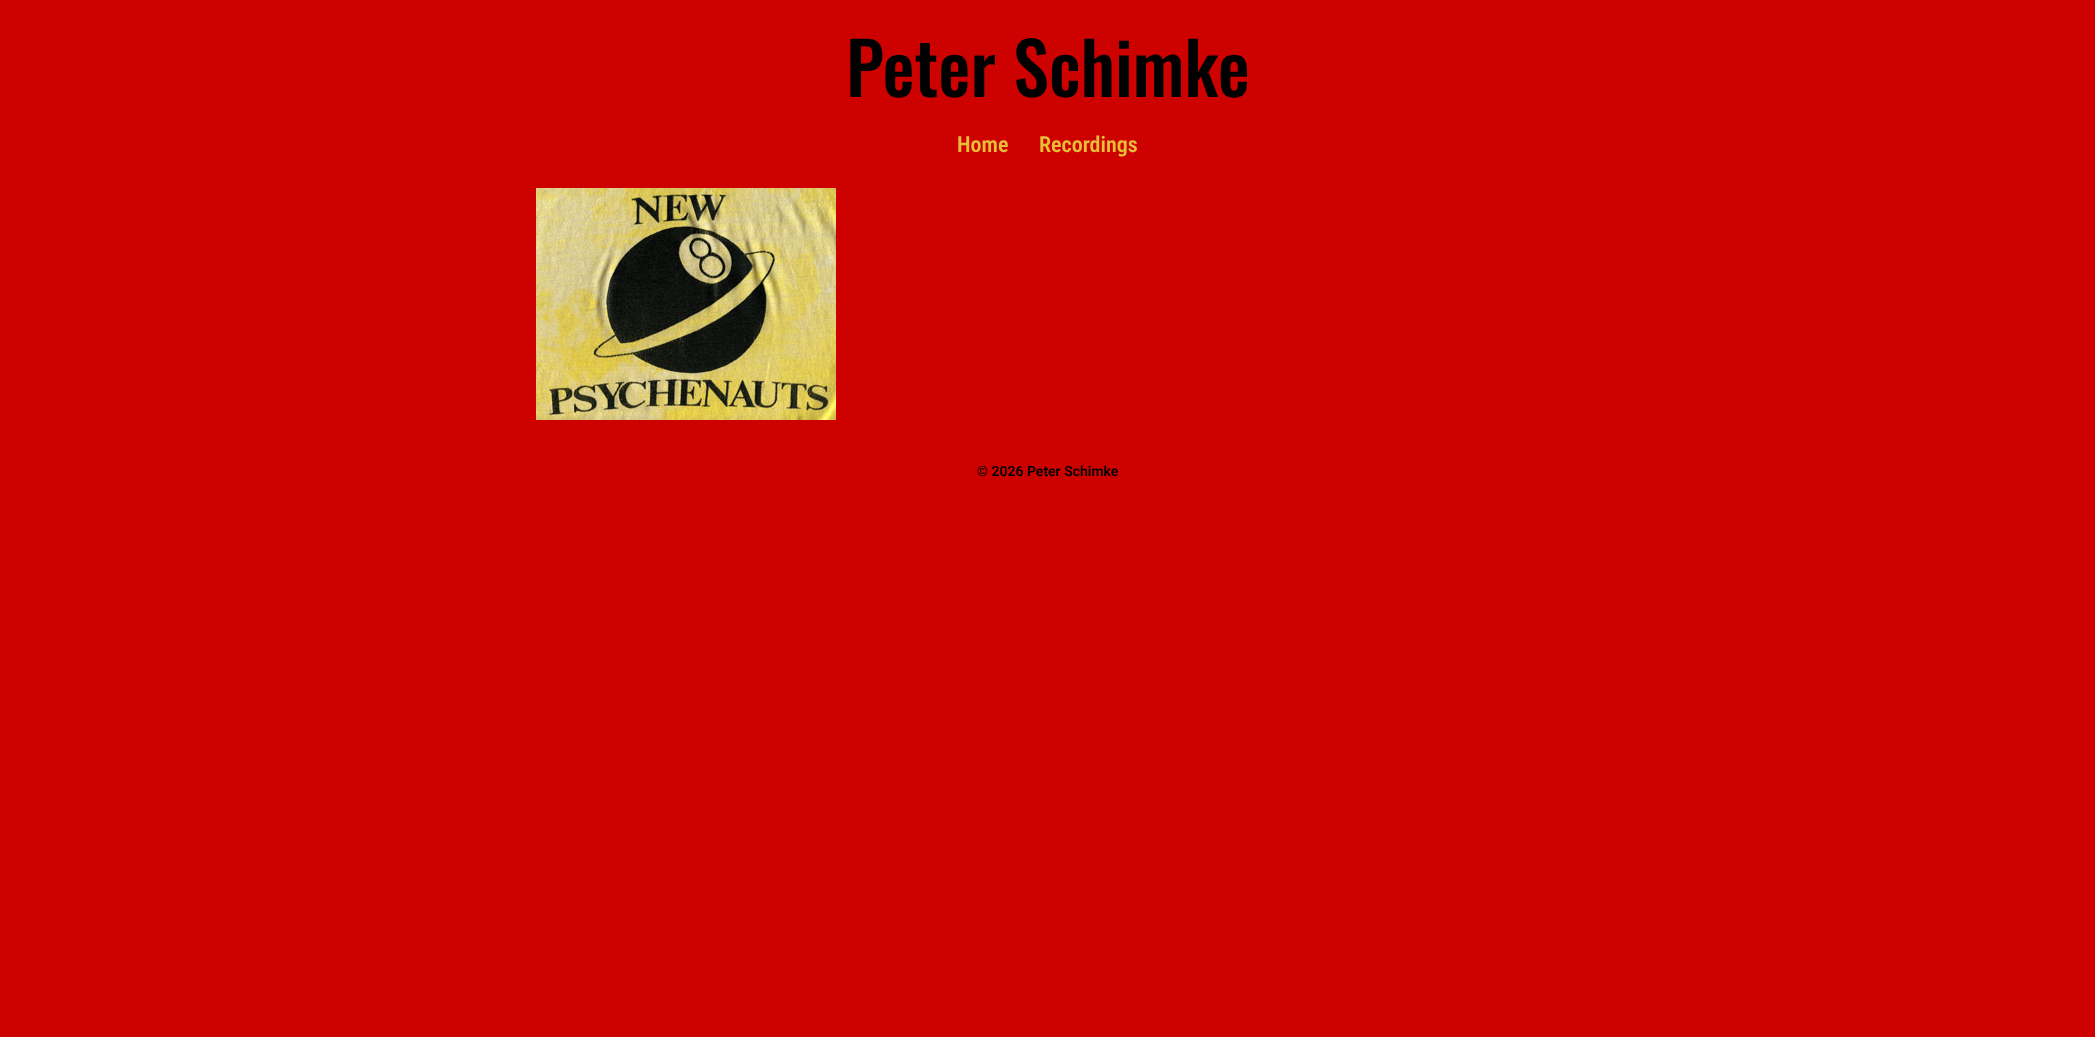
<svg xmlns="http://www.w3.org/2000/svg" width="2095" height="1037">
	<rect width="100%" height="100%" fill="#CC0100" />
	<text x="846" y="97" font-family="Oswald" font-size="72" font-weight="500" fill="#000000">Peter Schimke</text>
	<g font-family="Roboto Condensed" font-size="22" font-weight="600" fill="#E8BE35">
		<text x="957" y="152">Home</text>
		<text x="1039" y="152">Recordings</text>
	</g>
	<image x="536" y="188" width="300" height="232" href="assets/img1.png" />
	<text x="977" y="476" font-family="Roboto" font-size="14" font-weight="600" fill="#000000">© 2026 Peter Schimke</text>
</svg>
